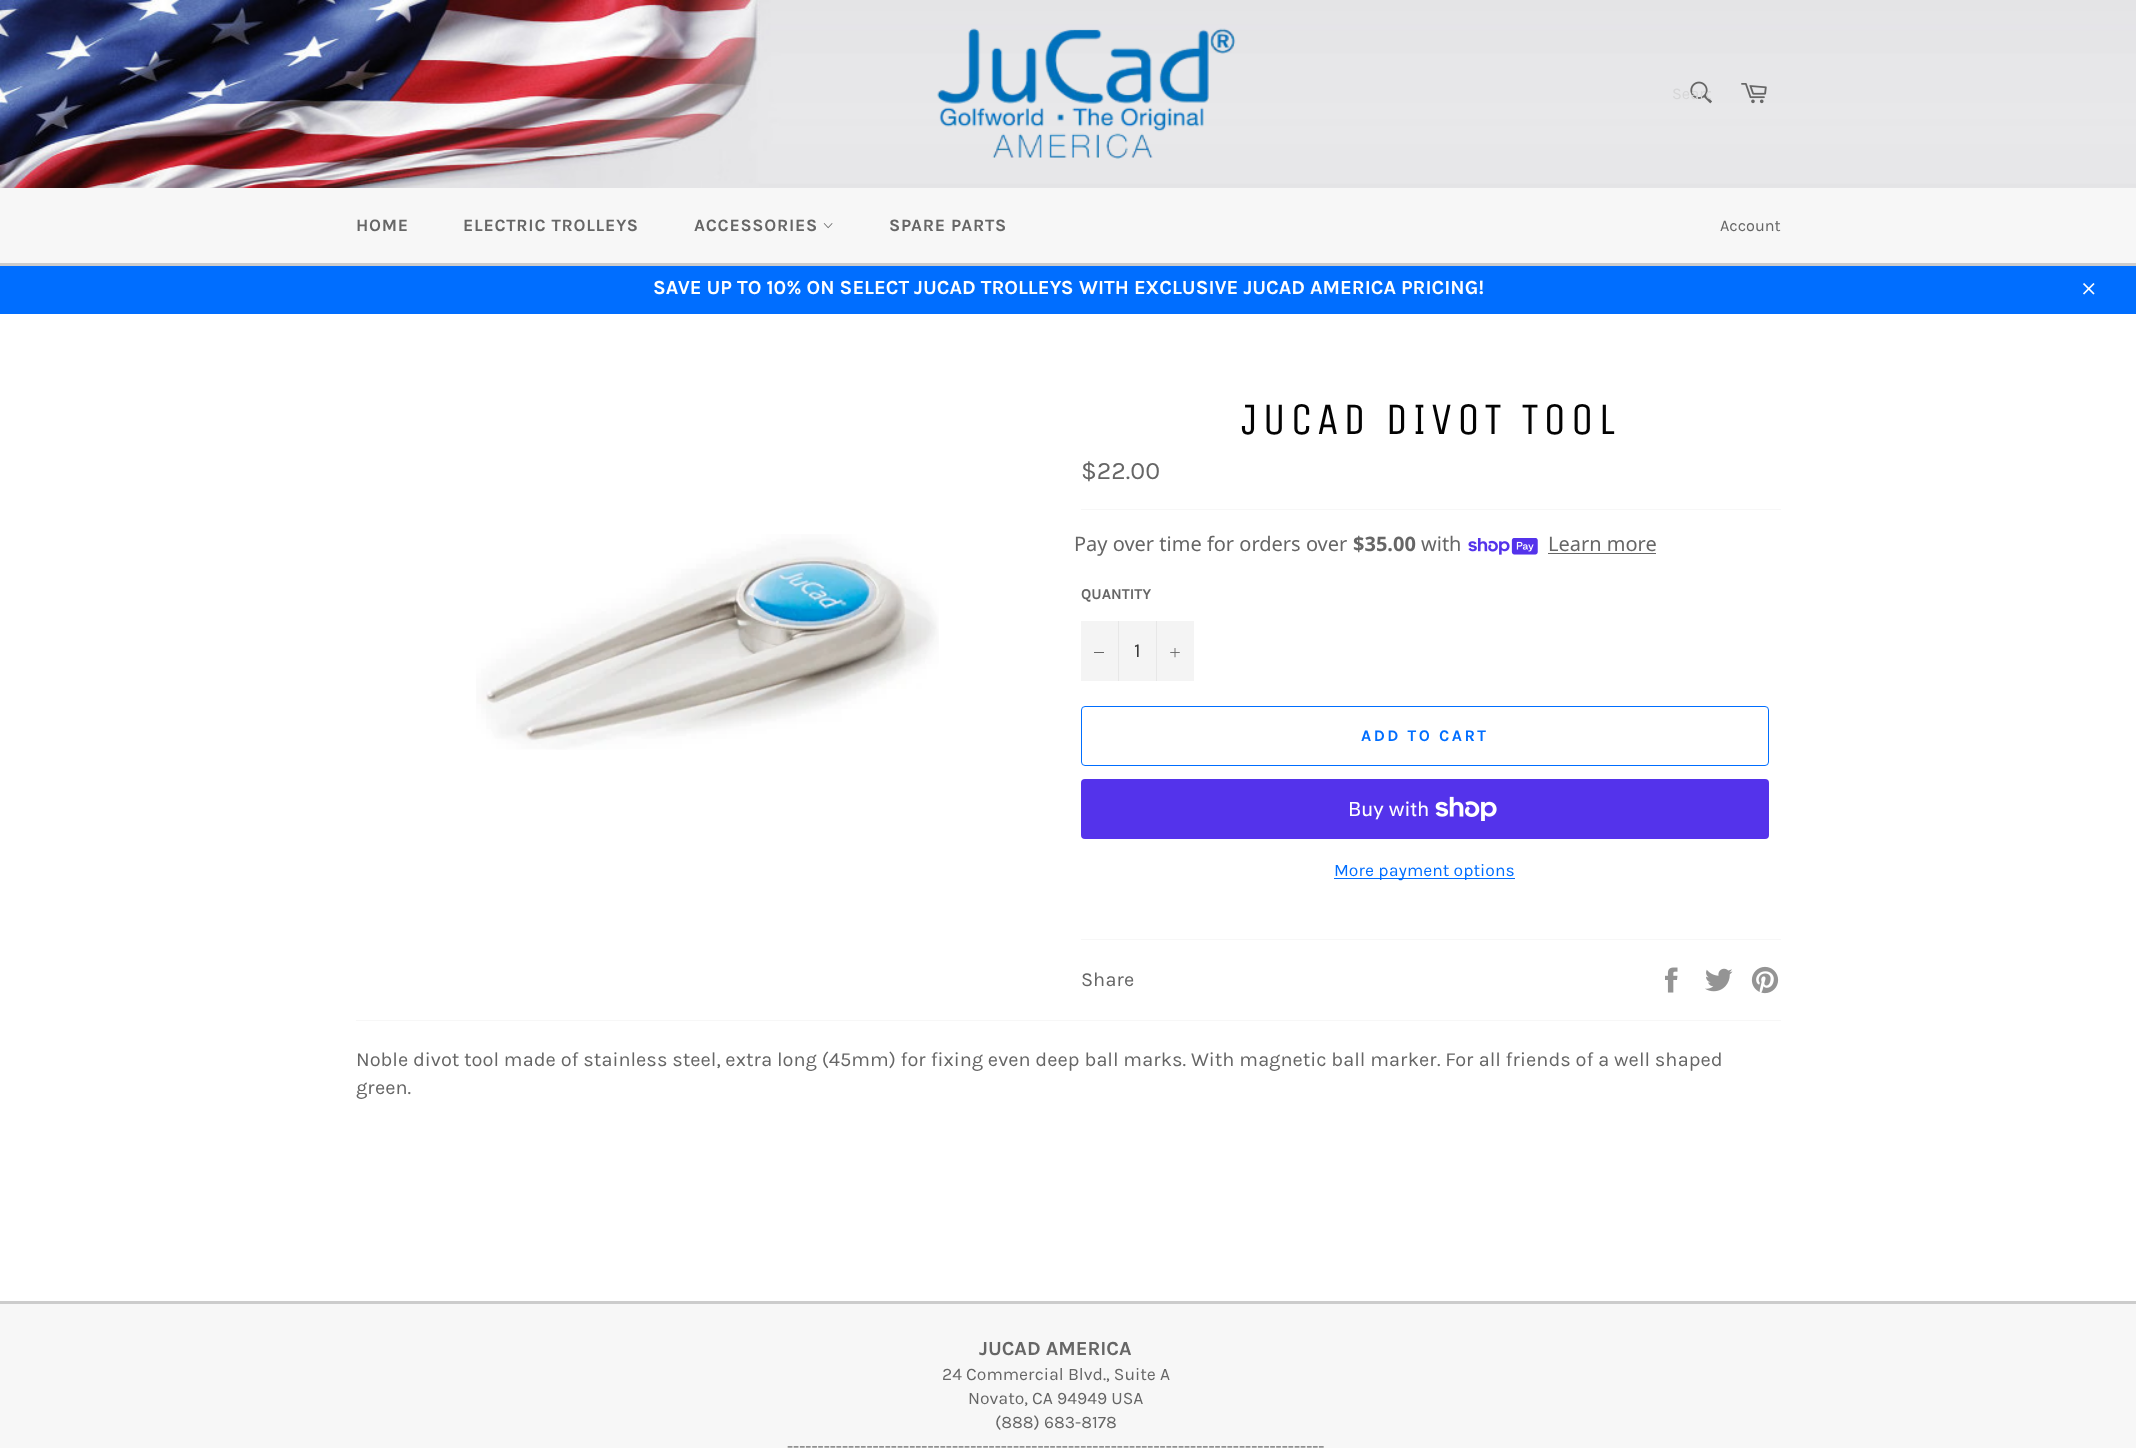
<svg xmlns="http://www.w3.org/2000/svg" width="2136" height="1448">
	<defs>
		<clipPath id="clip1"><rect x="1671" y="85" width="40" height="19" /></clipPath>
	</defs>
	<rect width="100%" height="100%" fill="#FFFFFF" />
	<image x="0" y="0" width="2136" height="188" href="assets/img1.png" />
	<image x="937" y="28" width="299" height="131" href="assets/img2.png" />
	<image x="1690" y="81" width="22" height="23" href="assets/img3.png" />
	<g clip-path="url(#clip1)">
		<text x="1672" y="99" font-family="Karla" font-size="16.25" fill="#D6D6D7">Searc</text>
	</g>
	<image x="1741" y="83" width="26" height="21" href="assets/img4.png" />
	<rect x="0" y="188" width="2136" height="75" fill="#F7F7F7" />
	<rect x="0" y="263" width="2136" height="3" fill="#CCCCCC" />
	<g font-family="Karla" font-size="17.5" font-weight="700" letter-spacing="0.75" fill="#666666">
		<text x="356" y="231">HOME</text>
		<text x="463" y="231">ELECTRIC TROLLEYS</text>
		<text x="694" y="231">ACCESSORIES</text>
	</g>
	<image x="823" y="223" width="10" height="6" href="assets/img5.png" />
	<text x="889" y="231" font-family="Karla" font-size="17.5" font-weight="700" letter-spacing="0.75" fill="#666666">SPARE PARTS</text>
	<text x="1720" y="231" font-family="Karla" font-size="16.25" fill="#666666">Account</text>
	<rect x="0" y="266" width="2136" height="48" fill="#006EFF" />
	<text x="653" y="294" font-family="Karla" font-size="20" font-weight="700" fill="#FFFFFF">SAVE UP TO 10% ON SELECT JUCAD TROLLEYS WITH EXCLUSIVE JUCAD AMERICA PRICING!</text>
	<image x="2083" y="283" width="12" height="12" href="assets/img6.png" />
	<image x="476" y="534" width="463" height="216" href="assets/img7.png" />
	<text x="1241" y="434" font-family="Unica One" font-size="45" letter-spacing="4.5" fill="#030303">JUCAD DIVOT TOOL</text>
	<text x="1081" y="479" font-family="Karla" font-size="25" fill="#666666">$22.00</text>
	<rect x="1081" y="509" width="700" height="1" fill="#F7F7F7" />
	<text x="1074" y="551" font-family="Noto Sans" font-size="20" fill="#666666">Pay over time for orders over</text>
	<text x="1353" y="551" font-family="Noto Sans" font-size="20" font-weight="700" fill="#666666">$35.00</text>
	<text x="1421" y="551" font-family="Noto Sans" font-size="20" fill="#666666">with</text>
	<image x="1468" y="538" width="70" height="17" href="assets/img8.png" />
	<text x="1548" y="551" font-family="Noto Sans" font-size="20" fill="#666666">Learn more</text>
	<rect x="1548" y="553" width="108" height="1" fill="#666666" />
	<text x="1081" y="599" font-family="Karla" font-size="15" font-weight="700" fill="#666666">QUANTITY</text>
	<rect x="1081" y="621" width="113" height="60" fill="#F4F4F4" />
	<rect x="1118" y="621" width="1" height="60" fill="#E7E7E7" />
	<rect x="1094" y="652" width="10" height="1" fill="#666666" />
	<text x="1134" y="657" font-family="Karla" font-size="20" fill="#333333">1</text>
	<rect x="1156" y="621" width="1" height="60" fill="#E7E7E7" />
	<image x="1170" y="648" width="10" height="10" href="assets/img9.png" />
	<rect x="1081.5" y="706.5" width="687" height="59" rx="3.5" fill="none" stroke="#006EFF" />
	<text x="1361" y="741" font-family="Karla" font-size="16.25" font-weight="700" letter-spacing="2.5" fill="#006EFF">ADD TO CART</text>
	<rect x="1081" y="779" width="688" height="60" rx="4" fill="#5433EB" />
	<text x="1348" y="816" font-family="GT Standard" font-size="20" fill="#FFFFFF">Buy with</text>
	<image x="1435" y="796" width="62" height="25" href="assets/img10.png" />
	<rect x="1334" y="878" width="181" height="1" fill="#006EFF" />
	<text x="1334" y="876" font-family="Karla" font-size="17.5" fill="#006EFF">More payment options</text>
	<rect x="1081" y="939" width="700" height="1" fill="#F7F7F7" />
	<text x="1081" y="986" font-family="Karla" font-size="20" fill="#666666">Share</text>
	<image x="1665" y="967" width="13" height="26" href="assets/img11.png" />
	<image x="1705" y="968" width="28" height="24" href="assets/img12.png" />
	<image x="1751" y="966" width="28" height="28" href="assets/img13.png" />
	<rect x="356" y="1020" width="1425" height="1" fill="#F7F7F7" />
	<g font-family="Karla" font-size="20" fill="#666666">
		<text x="356" y="1066">Noble divot tool made of stainless steel, extra long (45mm) for fixing even deep ball marks. With magnetic ball marker. For all friends of a well shaped</text>
		<text x="356" y="1094">green.</text>
	</g>
	<rect x="0" y="1304" width="2136" height="144" fill="#F7F7F7" />
	<rect x="0" y="1301" width="2136" height="3" fill="#CCCCCC" />
	<text x="979" y="1355" font-family="Karla" font-size="20" font-weight="700" fill="#666666">JUCAD AMERICA</text>
	<g font-family="Karla" font-size="17.5" fill="#666666">
		<text x="942" y="1380">24 Commercial Blvd., Suite A</text>
		<text x="968" y="1404">Novato, CA 94949 USA</text>
		<text x="995" y="1428">(888) 683-8178</text>
		<text x="787" y="1452">----------------------------------------------------------------------------------------</text>
	</g>
</svg>
